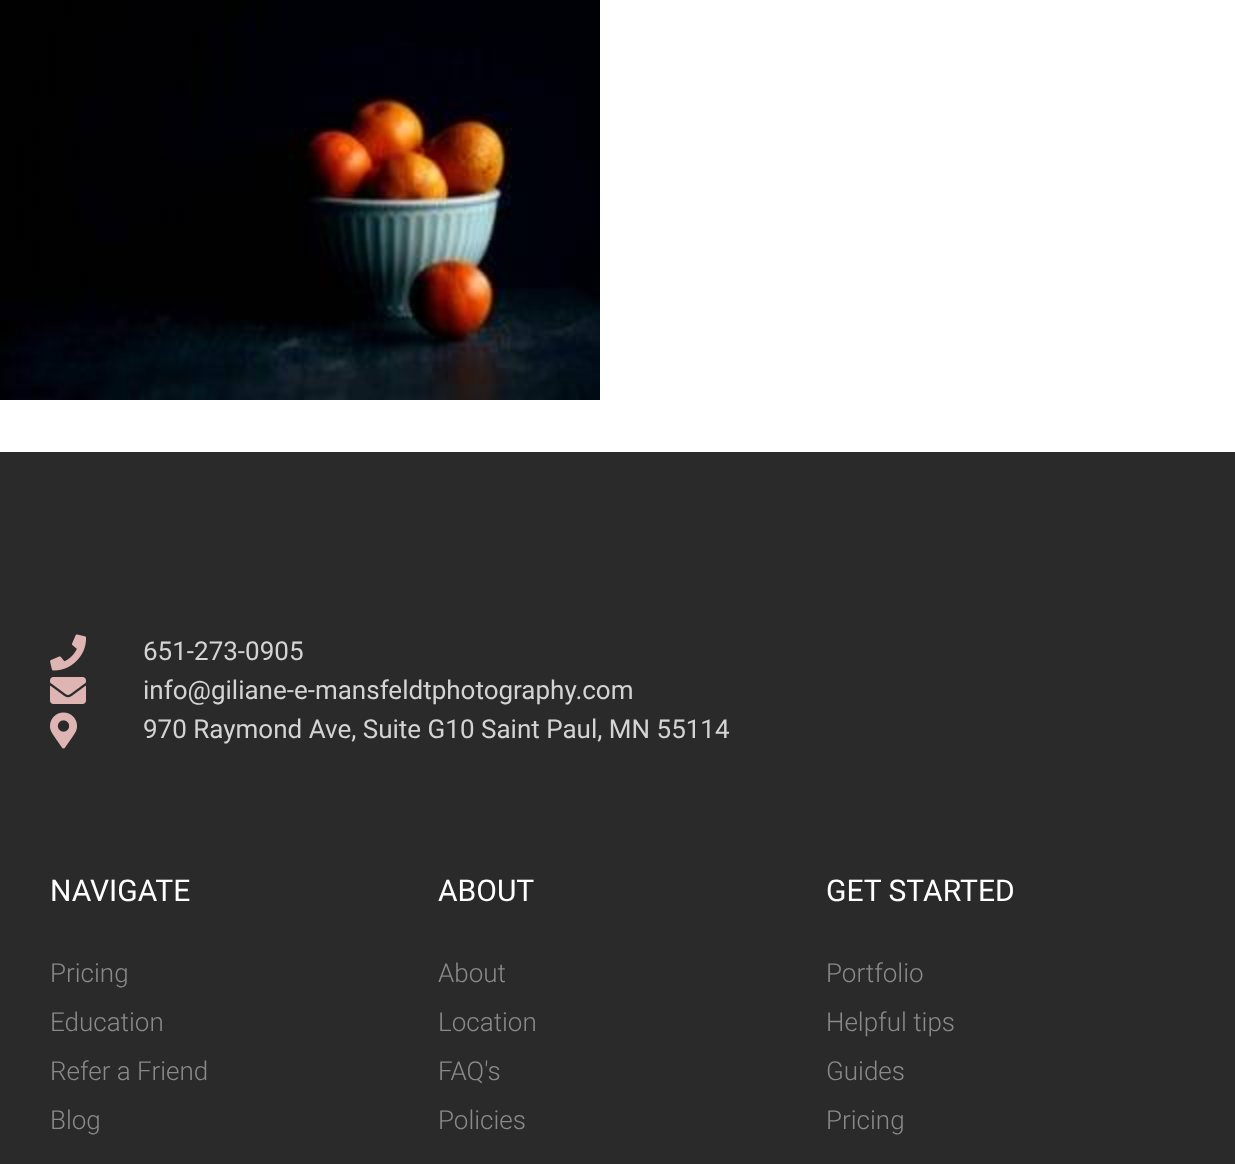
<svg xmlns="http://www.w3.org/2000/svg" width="1235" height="1164">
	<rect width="100%" height="100%" fill="#FFFFFF" />
	<image x="0" y="0" width="600" height="400" href="assets/img1.png" />
	<rect x="0" y="452" width="1235" height="712" fill="#2A2A2A" />
	<image x="50" y="634" width="37" height="37" href="assets/img2.png" />
	<text x="143" y="660" font-family="Roboto" font-size="26" fill="#D4D4D4">651-273-0905</text>
	<image x="50" y="677" width="36" height="27" href="assets/img3.png" />
	<text x="143" y="699" font-family="Roboto" font-size="26" fill="#D4D4D4">info@giliane-e-mansfeldtphotography.com</text>
	<image x="50" y="712" width="27" height="37" href="assets/img4.png" />
	<text x="143" y="738" font-family="Roboto" font-size="26" fill="#D4D4D4">970 Raymond Ave, Suite G10 Saint Paul, MN 55114</text>
	<text x="50" y="901" font-family="Roboto" font-size="30" fill="#FFFFFF">NAVIGATE</text>
	<g font-family="Roboto" font-size="26" font-weight="300" fill="#8A8A8A">
		<text x="50" y="982">Pricing</text>
		<text x="50" y="1031">Education</text>
		<text x="50" y="1080">Refer a Friend</text>
		<text x="50" y="1129">Blog</text>
	</g>
	<text x="438" y="901" font-family="Roboto" font-size="30" fill="#FFFFFF">ABOUT</text>
	<g font-family="Roboto" font-size="26" font-weight="300" fill="#8A8A8A">
		<text x="438" y="982">About</text>
		<text x="438" y="1031">Location</text>
		<text x="438" y="1080">FAQ's</text>
		<text x="438" y="1129">Policies</text>
	</g>
	<text x="826" y="901" font-family="Roboto" font-size="30" fill="#FFFFFF">GET STARTED</text>
	<g font-family="Roboto" font-size="26" font-weight="300" fill="#8A8A8A">
		<text x="826" y="982">Portfolio</text>
		<text x="826" y="1031">Helpful tips</text>
		<text x="826" y="1080">Guides</text>
		<text x="826" y="1129">Pricing</text>
	</g>
</svg>
